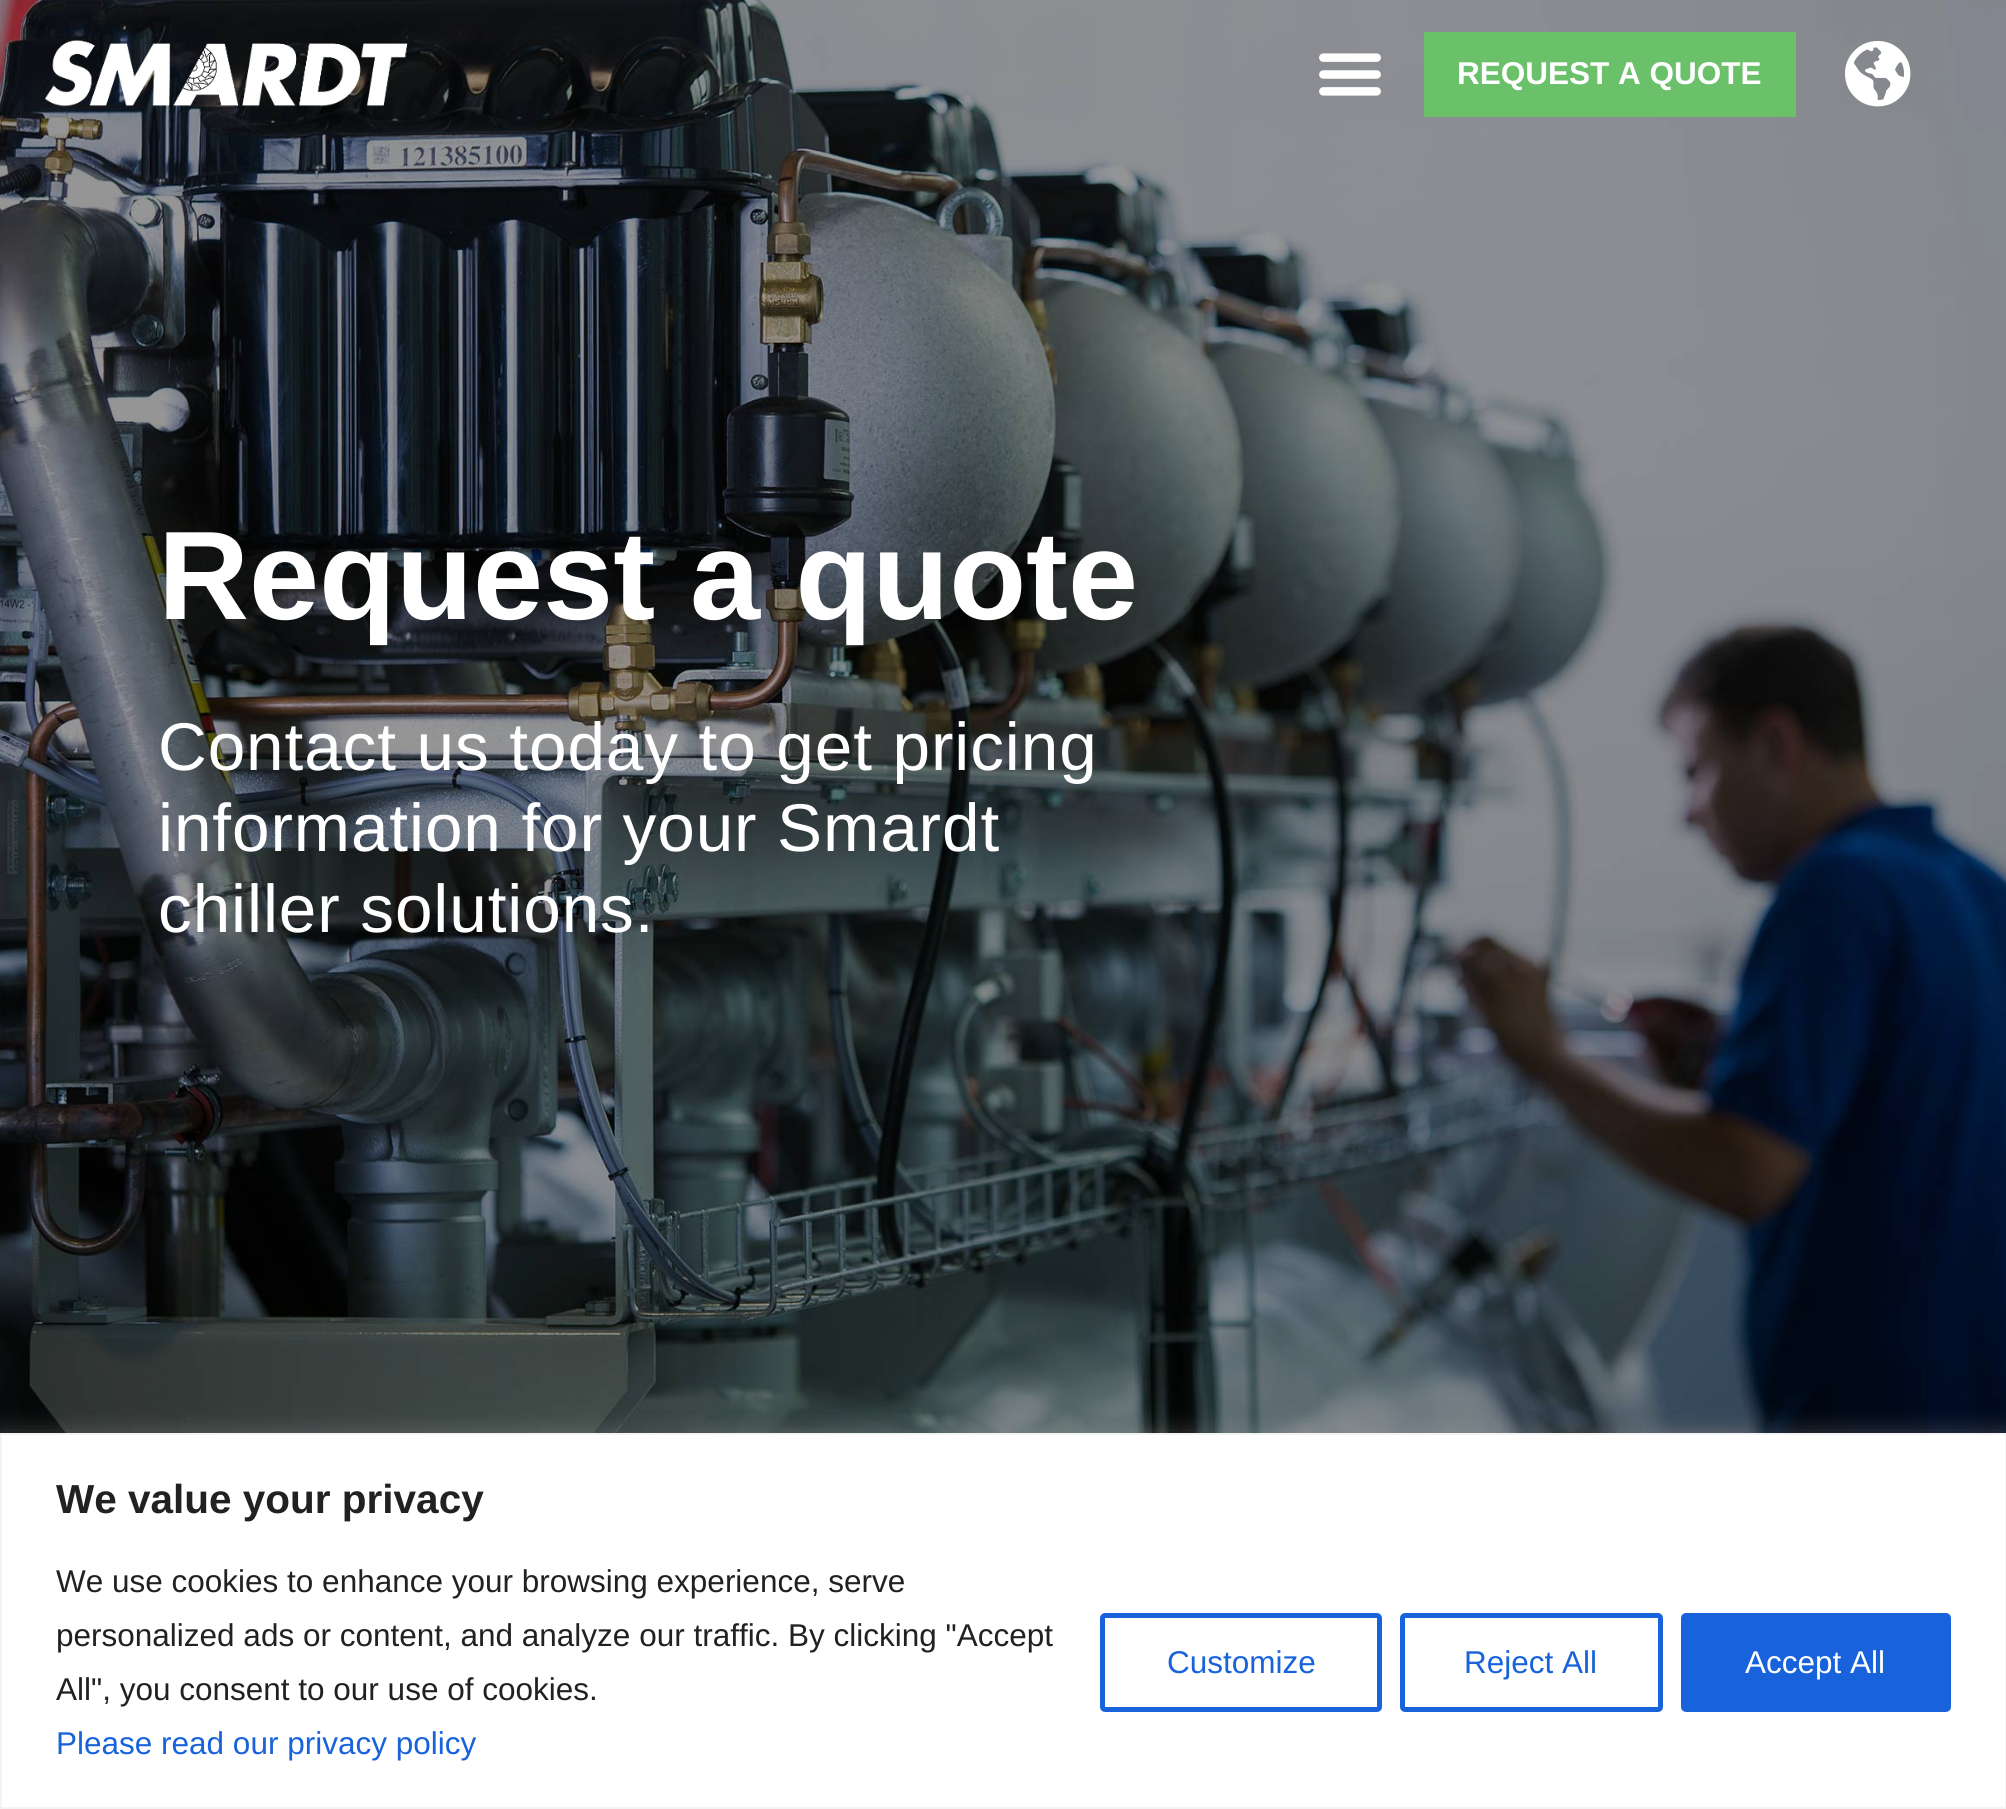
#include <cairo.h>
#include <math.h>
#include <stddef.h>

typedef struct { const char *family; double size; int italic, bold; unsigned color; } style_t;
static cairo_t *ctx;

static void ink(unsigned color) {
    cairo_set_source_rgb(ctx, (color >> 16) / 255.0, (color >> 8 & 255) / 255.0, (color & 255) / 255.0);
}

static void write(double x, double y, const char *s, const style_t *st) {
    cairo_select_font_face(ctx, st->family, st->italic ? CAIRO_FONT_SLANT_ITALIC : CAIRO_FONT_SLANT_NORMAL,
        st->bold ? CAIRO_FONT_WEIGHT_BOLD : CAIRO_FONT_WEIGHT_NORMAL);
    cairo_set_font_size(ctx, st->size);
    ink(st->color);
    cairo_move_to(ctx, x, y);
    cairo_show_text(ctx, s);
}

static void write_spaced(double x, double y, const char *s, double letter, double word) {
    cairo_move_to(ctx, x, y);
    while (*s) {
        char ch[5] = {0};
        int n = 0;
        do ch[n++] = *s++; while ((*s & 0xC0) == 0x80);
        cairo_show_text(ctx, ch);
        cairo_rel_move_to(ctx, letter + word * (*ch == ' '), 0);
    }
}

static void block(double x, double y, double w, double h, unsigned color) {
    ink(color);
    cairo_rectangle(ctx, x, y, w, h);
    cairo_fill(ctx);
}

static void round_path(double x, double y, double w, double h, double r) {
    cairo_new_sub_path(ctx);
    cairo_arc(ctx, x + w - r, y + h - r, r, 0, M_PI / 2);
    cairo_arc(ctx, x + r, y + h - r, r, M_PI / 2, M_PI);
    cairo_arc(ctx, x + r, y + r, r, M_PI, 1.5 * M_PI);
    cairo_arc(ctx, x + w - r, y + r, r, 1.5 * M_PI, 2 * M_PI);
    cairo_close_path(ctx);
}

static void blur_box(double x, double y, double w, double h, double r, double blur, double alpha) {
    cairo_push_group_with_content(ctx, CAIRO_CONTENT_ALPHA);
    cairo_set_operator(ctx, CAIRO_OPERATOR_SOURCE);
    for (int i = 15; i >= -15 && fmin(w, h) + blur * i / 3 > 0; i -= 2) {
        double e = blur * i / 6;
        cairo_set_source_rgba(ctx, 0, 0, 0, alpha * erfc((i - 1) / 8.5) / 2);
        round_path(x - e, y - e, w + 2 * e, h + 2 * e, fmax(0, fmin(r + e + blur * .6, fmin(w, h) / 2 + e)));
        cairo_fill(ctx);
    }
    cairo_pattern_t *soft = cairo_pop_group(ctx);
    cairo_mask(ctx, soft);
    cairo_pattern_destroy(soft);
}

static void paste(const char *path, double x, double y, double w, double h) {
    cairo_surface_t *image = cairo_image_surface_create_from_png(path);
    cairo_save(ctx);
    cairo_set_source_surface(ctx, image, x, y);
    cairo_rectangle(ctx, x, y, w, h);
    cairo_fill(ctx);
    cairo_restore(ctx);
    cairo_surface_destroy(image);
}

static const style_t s1 = {"Liberation Sans", 31.5, 0, 1, 0xffffff};
static const style_t s2 = {"Liberation Sans", 126, 0, 1, 0xffffff};
static const style_t s3 = {"Liberation Sans", 40.5, 0, 1, 0x212121};
static const style_t s4 = {"Liberation Sans", 31.5, 0, 0, 0x212121};
static const style_t s5 = {"Liberation Sans", 31.5, 0, 0, 0x1863dc};
static const style_t s6 = {"Liberation Sans", 31.5, 0, 0, 0xffffff};

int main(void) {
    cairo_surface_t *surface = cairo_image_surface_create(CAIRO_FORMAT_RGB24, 2006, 1809);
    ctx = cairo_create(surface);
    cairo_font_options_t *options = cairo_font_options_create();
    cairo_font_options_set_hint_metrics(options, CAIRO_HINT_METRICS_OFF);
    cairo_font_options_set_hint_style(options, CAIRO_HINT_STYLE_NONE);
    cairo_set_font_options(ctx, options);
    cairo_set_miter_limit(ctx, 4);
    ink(0xffffff);
    cairo_paint(ctx);
    paste("pic4.png", 0, 0, 2006, 1433);
    paste("pic1.png", 45, 40, 363, 67);
    paste("pic2.png", 1319, 53, 62, 43);
    block(1424, 32, 372, 85, 0x6bc06a);
    write(1457, 84, "REQUEST A QUOTE", &s1);
    paste("pic3.png", 1845, 41, 66, 66);
    write(158, 619, "Request a quote", &s2);
    cairo_select_font_face(ctx, "Liberation Sans", CAIRO_FONT_SLANT_NORMAL, CAIRO_FONT_WEIGHT_NORMAL);
    cairo_set_font_size(ctx, 67.5);
    write_spaced(158, 770, "Contact us today to get pricing", 0.9, 0);
    write_spaced(158, 851, "information for your Smardt", 0.9, 0);
    write_spaced(158, 932, "chiller solutions.", 0.9, 0);
    ink(0xacabab);
    blur_box(0, 1431, 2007, 376, 0, 11, 0.3);
    ink(0xffffff);
    cairo_rectangle(ctx, 1, 1434, 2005, 374);
    cairo_fill_preserve(ctx);
    ink(0xf4f4f4);
    cairo_stroke(ctx);
    write(56, 1513, "We value your privacy", &s3);
    write(56, 1592, "We use cookies to enhance your browsing experience, serve", &s4);
    write(56, 1646, "personalized ads or content, and analyze our traffic. By clicking \"Accept", &s4);
    write(56, 1700, "All\", you consent to our use of cookies.", &s4);
    write(56, 1754, "Please read our privacy policy", &s5);
    round_path(1102.5, 1615.5, 277, 94, 2.5);
    cairo_set_line_width(ctx, 5);
    cairo_stroke(ctx);
    write(1167, 1673, "Customize", &s5);
    round_path(1402.5, 1615.5, 258, 94, 2.5);
    cairo_stroke(ctx);
    write(1464, 1673, "Reject All", &s5);
    round_path(1683.5, 1615.5, 265, 94, 2.5);
    cairo_fill_preserve(ctx);
    cairo_stroke(ctx);
    write(1745, 1673, "Accept All", &s6);
    cairo_surface_write_to_png(surface, "screenshot.png");
    cairo_font_options_destroy(options);
    cairo_destroy(ctx);
    cairo_surface_destroy(surface);
    return 0;
}
